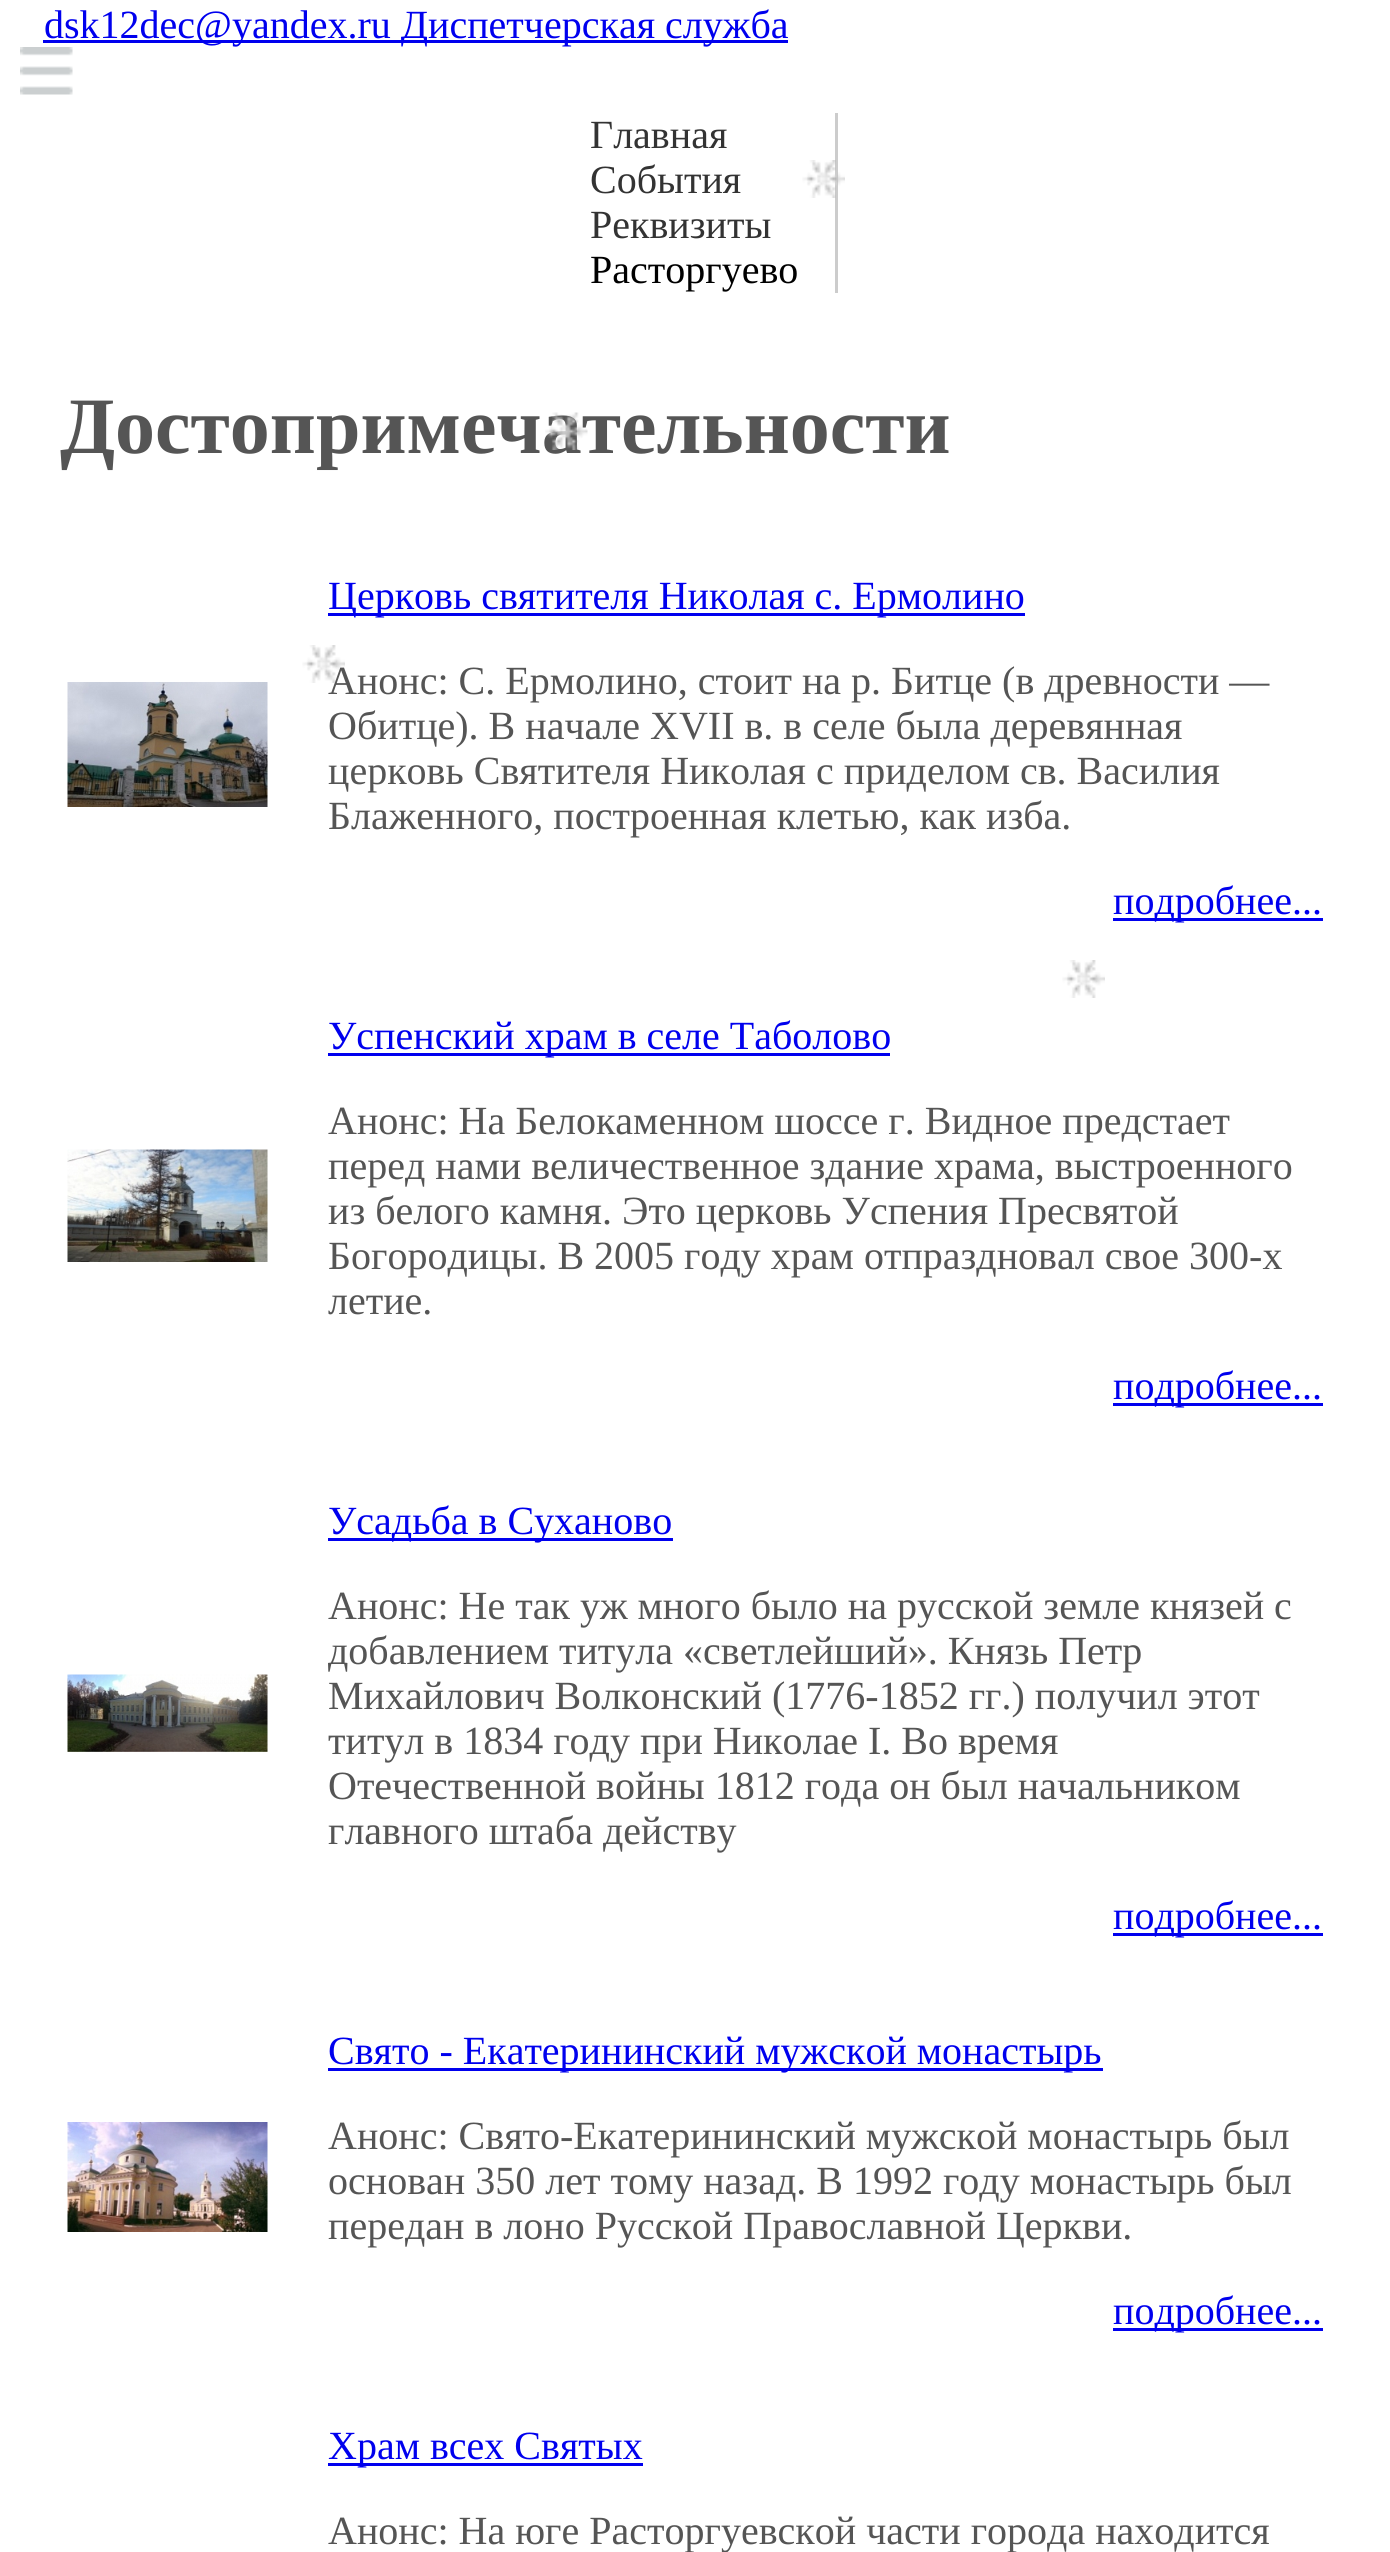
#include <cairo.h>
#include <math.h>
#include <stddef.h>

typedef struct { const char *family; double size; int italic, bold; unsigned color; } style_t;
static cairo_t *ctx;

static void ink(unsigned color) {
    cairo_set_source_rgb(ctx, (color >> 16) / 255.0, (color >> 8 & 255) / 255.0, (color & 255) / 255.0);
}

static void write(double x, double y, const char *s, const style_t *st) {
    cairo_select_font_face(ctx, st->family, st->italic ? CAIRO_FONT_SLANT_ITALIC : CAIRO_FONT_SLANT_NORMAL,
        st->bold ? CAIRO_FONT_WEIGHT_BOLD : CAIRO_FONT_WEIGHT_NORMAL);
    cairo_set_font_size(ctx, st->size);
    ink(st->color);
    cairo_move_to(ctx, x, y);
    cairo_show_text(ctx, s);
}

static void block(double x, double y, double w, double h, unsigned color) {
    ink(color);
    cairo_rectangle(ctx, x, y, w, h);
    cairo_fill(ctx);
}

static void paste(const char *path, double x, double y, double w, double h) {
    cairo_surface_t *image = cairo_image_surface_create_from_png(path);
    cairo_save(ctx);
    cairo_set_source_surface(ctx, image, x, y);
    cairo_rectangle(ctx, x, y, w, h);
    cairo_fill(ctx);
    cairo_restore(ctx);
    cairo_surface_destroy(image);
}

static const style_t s1 = {"Liberation Serif", 40, 0, 0, 0x0000ee};
static const style_t s2 = {"Liberation Serif", 40, 0, 0, 0x333333};
static const style_t s3 = {"Liberation Serif", 40, 0, 0, 0x000000};
static const style_t s4 = {"Liberation Serif", 80, 0, 1, 0x555555};
static const style_t s5 = {"Liberation Serif", 40, 0, 0, 0x555555};

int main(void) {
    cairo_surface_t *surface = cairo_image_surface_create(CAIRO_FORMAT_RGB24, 1390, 2552);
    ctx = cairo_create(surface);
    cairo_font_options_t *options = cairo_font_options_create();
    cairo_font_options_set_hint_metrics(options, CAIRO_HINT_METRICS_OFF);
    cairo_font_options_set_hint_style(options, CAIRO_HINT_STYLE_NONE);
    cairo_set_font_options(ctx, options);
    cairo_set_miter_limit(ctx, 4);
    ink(0xffffff);
    cairo_paint(ctx);
    block(43, 40, 745, 3, 0x0000ee);
    write(44, 38, "dsk12dec@yandex.ru Диспетчерская служба", &s1);
    paste("pic1.png", 20, 47, 53, 48);
    block(835, 113, 3, 180, 0xcccccc);
    write(590, 148, "Главная", &s2);
    write(590, 193, "События", &s2);
    write(590, 238, "Реквизиты", &s2);
    write(590, 283, "Расторгуево", &s3);
    paste("pic2.png", 802, 160, 43, 38);
    write(60, 453, "Достопримечательности", &s4);
    paste("pic3.png", 545, 412, 43, 38);
    write(328, 694, "Анонс: С. Ермолино, стоит на р. Битце (в древности —", &s5);
    paste("pic4.png", 302, 645, 43, 38);
    paste("pic5.png", 1062, 960, 43, 38);
    paste("pic6.png", 67, 682, 201, 125);
    block(328, 613, 697, 3, 0x0000ee);
    write(328, 609, "Церковь святителя Николая с. Ермолино", &s1);
    write(328, 739, "Обитце). В начале XVII в. в селе была деревянная", &s5);
    write(328, 784, "церковь Святителя Николая с приделом св. Василия", &s5);
    write(328, 829, "Блаженного, построенная клетью, как изба.", &s5);
    block(1113, 918, 210, 3, 0x0000ee);
    write(1113, 914, "подробнее...", &s1);
    paste("pic7.png", 67, 1149, 201, 113);
    block(328, 1053, 562, 3, 0x0000ee);
    write(328, 1049, "Успенский храм в селе Таболово", &s1);
    write(328, 1134, "Анонс: На Белокаменном шоссе г. Видное предстает", &s5);
    write(328, 1179, "перед нами величественное здание храма, выстроенного", &s5);
    write(328, 1224, "из белого камня. Это церковь Успения Пресвятой", &s5);
    write(328, 1269, "Богородицы. В 2005 году храм отпраздновал свое 300-х", &s5);
    write(328, 1314, "летие.", &s5);
    block(1113, 1403, 210, 3, 0x0000ee);
    write(1113, 1399, "подробнее...", &s1);
    paste("pic8.png", 67, 1674, 201, 78);
    block(328, 1538, 345, 3, 0x0000ee);
    write(328, 1534, "Усадьба в Суханово", &s1);
    write(328, 1619, "Анонс: Не так уж много было на русской земле князей с", &s5);
    write(328, 1664, "добавлением титула «светлейший». Князь Петр", &s5);
    write(328, 1709, "Михайлович Волконский (1776-1852 гг.) получил этот", &s5);
    write(328, 1754, "титул в 1834 году при Николае I. Во время", &s5);
    write(328, 1799, "Отечественной войны 1812 года он был начальником", &s5);
    write(328, 1844, "главного штаба действу", &s5);
    block(1113, 1933, 210, 3, 0x0000ee);
    write(1113, 1929, "подробнее...", &s1);
    paste("pic9.png", 67, 2122, 201, 110);
    block(328, 2068, 775, 3, 0x0000ee);
    write(328, 2064, "Свято - Екатерининский мужской монастырь", &s1);
    write(328, 2149, "Анонс: Свято-Екатерининский мужской монастырь был", &s5);
    write(328, 2194, "основан 350 лет тому назад. В 1992 году монастырь был", &s5);
    write(328, 2239, "передан в лоно Русской Православной Церкви.", &s5);
    block(1113, 2328, 210, 3, 0x0000ee);
    write(1113, 2324, "подробнее...", &s1);
    block(328, 2463, 315, 3, 0x0000ee);
    write(328, 2459, "Храм всех Святых", &s1);
    write(328, 2544, "Анонс: На юге Расторгуевской части города находится", &s5);
    cairo_surface_write_to_png(surface, "screenshot.png");
    cairo_font_options_destroy(options);
    cairo_destroy(ctx);
    cairo_surface_destroy(surface);
    return 0;
}
